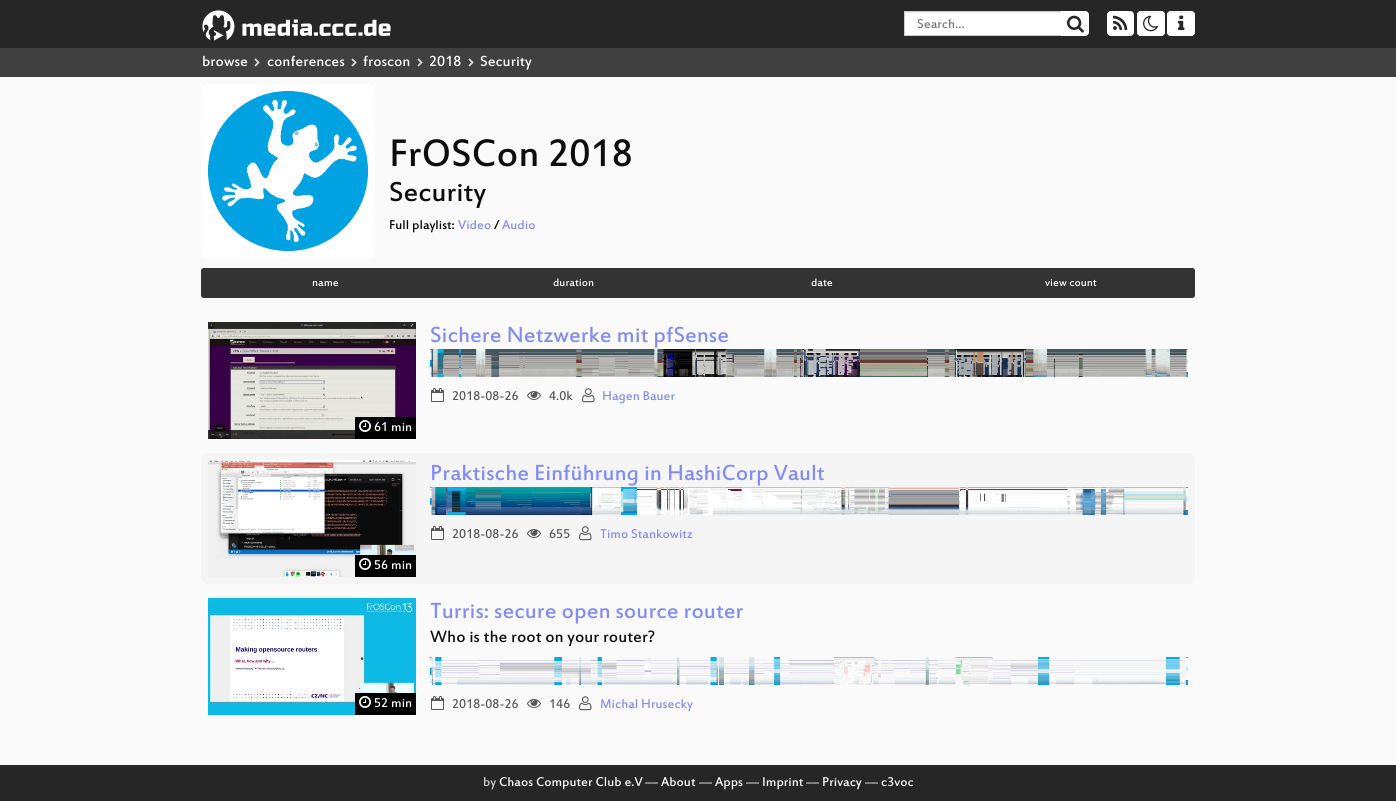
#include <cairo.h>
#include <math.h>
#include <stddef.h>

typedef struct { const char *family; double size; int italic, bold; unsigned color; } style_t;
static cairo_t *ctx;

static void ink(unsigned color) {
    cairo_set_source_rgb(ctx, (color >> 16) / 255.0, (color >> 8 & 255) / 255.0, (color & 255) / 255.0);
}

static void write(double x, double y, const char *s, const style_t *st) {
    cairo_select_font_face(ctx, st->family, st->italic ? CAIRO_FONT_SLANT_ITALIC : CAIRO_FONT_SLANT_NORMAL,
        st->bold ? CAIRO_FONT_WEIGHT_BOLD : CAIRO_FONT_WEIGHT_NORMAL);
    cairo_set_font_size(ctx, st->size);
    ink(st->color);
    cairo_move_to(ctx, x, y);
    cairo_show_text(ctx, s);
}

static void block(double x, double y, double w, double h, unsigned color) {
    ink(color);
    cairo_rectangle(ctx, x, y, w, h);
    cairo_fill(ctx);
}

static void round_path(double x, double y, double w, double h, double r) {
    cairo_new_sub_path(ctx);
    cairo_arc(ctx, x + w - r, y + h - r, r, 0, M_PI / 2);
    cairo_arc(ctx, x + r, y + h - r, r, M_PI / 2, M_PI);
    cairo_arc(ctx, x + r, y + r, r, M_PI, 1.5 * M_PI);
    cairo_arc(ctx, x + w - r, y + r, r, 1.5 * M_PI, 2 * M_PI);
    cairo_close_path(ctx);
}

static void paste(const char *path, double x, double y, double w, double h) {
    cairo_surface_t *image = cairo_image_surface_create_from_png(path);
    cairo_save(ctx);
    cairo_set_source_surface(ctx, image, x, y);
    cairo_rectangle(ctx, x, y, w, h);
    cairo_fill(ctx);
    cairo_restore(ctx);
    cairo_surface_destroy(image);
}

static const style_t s1 = {"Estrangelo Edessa", 14, 0, 0, 0x777777};
static const style_t s2 = {"Estrangelo Edessa", 16, 0, 0, 0xffffff};
static const style_t s3 = {"Estrangelo Edessa", 42, 0, 0, 0x0d0d0d};
static const style_t s4 = {"Estrangelo Edessa", 30, 0, 0, 0x0d0d0d};
static const style_t s5 = {"Estrangelo Edessa", 14, 0, 0, 0x000000};
static const style_t s6 = {"Estrangelo Edessa", 14, 0, 0, 0x818cf8};
static const style_t s7 = {"Estrangelo Edessa", 12, 0, 0, 0xffffff};
static const style_t s8 = {"Estrangelo Edessa", 24, 0, 0, 0x818cf8};
static const style_t s9 = {"Estrangelo Edessa", 14, 0, 0, 0x585858};
static const style_t s10 = {"Estrangelo Edessa", 14, 0, 0, 0xffffff};
static const style_t s11 = {"Estrangelo Edessa", 18, 0, 0, 0x0d0d0d};
static const style_t s12 = {"Estrangelo Edessa", 14, 0, 0, 0xd4d4d4};

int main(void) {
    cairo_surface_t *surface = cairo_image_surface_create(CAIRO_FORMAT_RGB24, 1396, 801);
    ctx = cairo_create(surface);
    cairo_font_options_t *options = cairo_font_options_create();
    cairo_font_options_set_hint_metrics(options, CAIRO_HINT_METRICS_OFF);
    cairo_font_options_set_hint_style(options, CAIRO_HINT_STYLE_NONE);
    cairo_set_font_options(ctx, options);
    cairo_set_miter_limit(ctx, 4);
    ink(0xfafafa);
    cairo_paint(ctx);
    block(0, 0, 1396, 48, 0x262626);
    paste("pic1.png", 202, 10, 189, 31);
    block(905, 13, 156, 22, 0xffffff);
    block(905, 12, 156, 1, 0xececec);
    cairo_rectangle(ctx, 904.5, 11.5, 157, 24);
    ink(0xcccccc);
    cairo_set_line_width(ctx, 1);
    cairo_stroke(ctx);
    write(917, 28, "Search…", &s1);
    ink(0xffffff);
    cairo_new_path(ctx);
    cairo_move_to(ctx, 1061.5, 11.5);
    cairo_line_to(ctx, 1085, 11.5);
    cairo_curve_to(ctx, 1087, 11.5, 1088.5, 13, 1088.5, 15);
    cairo_line_to(ctx, 1088.5, 32);
    cairo_curve_to(ctx, 1088.5, 34, 1087, 35.5, 1085, 35.5);
    cairo_line_to(ctx, 1061.5, 35.5);
    cairo_close_path(ctx);
    cairo_fill_preserve(ctx);
    cairo_stroke(ctx);
    paste("pic2.png", 1067, 15, 17, 18);
    round_path(1107.5, 11.5, 26, 24, 3.5);
    cairo_fill_preserve(ctx);
    cairo_stroke(ctx);
    paste("pic3.png", 1113, 15, 15, 15);
    round_path(1137, 11, 28, 25, 4);
    cairo_fill(ctx);
    ink(0xececec);
    cairo_set_fill_rule(ctx, CAIRO_FILL_RULE_EVEN_ODD);
    cairo_new_path(ctx);
    cairo_move_to(ctx, 1141, 13);
    cairo_line_to(ctx, 1158, 13);
    cairo_curve_to(ctx, 1162.5, 13, 1164, 13.5, 1164, 16);
    cairo_line_to(ctx, 1164, 15);
    cairo_curve_to(ctx, 1164, 13.5, 1162.5, 12, 1161, 12);
    cairo_line_to(ctx, 1141, 12);
    cairo_curve_to(ctx, 1139.5, 12, 1138, 13.5, 1138, 15);
    cairo_line_to(ctx, 1138, 19);
    cairo_curve_to(ctx, 1138, 17, 1138, 13, 1141, 13);
    cairo_close_path(ctx);
    cairo_move_to(ctx, 1138, 33);
    cairo_line_to(ctx, 1138, 30);
    cairo_close_path(ctx);
    cairo_fill(ctx);
    round_path(1137.5, 11.5, 27, 24, 3.5);
    ink(0xffffff);
    cairo_stroke(ctx);
    paste("pic4.png", 1143, 15, 15, 17);
    round_path(1167, 11, 28, 25, 4);
    cairo_fill(ctx);
    ink(0xececec);
    cairo_new_path(ctx);
    cairo_move_to(ctx, 1171, 13);
    cairo_line_to(ctx, 1188, 13);
    cairo_curve_to(ctx, 1192.5, 13, 1194, 13.5, 1194, 16);
    cairo_line_to(ctx, 1194, 15);
    cairo_curve_to(ctx, 1194, 13.5, 1192.5, 12, 1191, 12);
    cairo_line_to(ctx, 1171, 12);
    cairo_curve_to(ctx, 1169.5, 12, 1168, 13.5, 1168, 15);
    cairo_line_to(ctx, 1168, 19);
    cairo_curve_to(ctx, 1168, 17, 1168, 13, 1171, 13);
    cairo_close_path(ctx);
    cairo_move_to(ctx, 1168, 33);
    cairo_line_to(ctx, 1168, 30);
    cairo_close_path(ctx);
    cairo_fill(ctx);
    round_path(1167.5, 11.5, 27, 24, 3.5);
    ink(0xffffff);
    cairo_stroke(ctx);
    paste("pic5.png", 1178, 15, 7, 15);
    block(0, 48, 1396, 29, 0x404040);
    write(202, 66, "browse", &s2);
    paste("pic6.png", 254, 58, 6, 9);
    write(267, 66, "conferences", &s2);
    paste("pic6.png", 351, 58, 6, 9);
    write(363, 66, "froscon", &s2);
    paste("pic6.png", 417, 58, 6, 9);
    write(429, 66, "2018", &s2);
    paste("pic6.png", 468, 58, 6, 9);
    write(480, 66, "Security", &s2);
    round_path(201, 84, 174, 174, 7);
    cairo_fill(ctx);
    paste("pic7.png", 208, 91, 160, 160);
    write(389, 166, "FrOSCon 2018", &s3);
    write(389, 201, "Security", &s4);
    write(389, 229, "Full playlist:", &s5);
    write(458, 229, "Video", &s6);
    write(494, 229, "/", &s5);
    write(502, 229, "Audio", &s6);
    ink(0x333333);
    cairo_new_path(ctx);
    cairo_move_to(ctx, 204, 268.5);
    cairo_line_to(ctx, 448.5, 268.5);
    cairo_line_to(ctx, 448.5, 297.5);
    cairo_line_to(ctx, 204, 297.5);
    cairo_curve_to(ctx, 202.5, 297.5, 201.5, 296.5, 201.5, 295);
    cairo_line_to(ctx, 201.5, 271);
    cairo_curve_to(ctx, 201.5, 269.5, 202.5, 268.5, 204, 268.5);
    cairo_close_path(ctx);
    cairo_fill_preserve(ctx);
    cairo_stroke(ctx);
    write(312, 286, "name", &s7);
    block(449, 268, 497, 30, 0x333333);
    write(553, 286, "duration", &s7);
    write(811, 286, "date", &s7);
    ink(0x333333);
    cairo_new_path(ctx);
    cairo_move_to(ctx, 946.5, 268.5);
    cairo_line_to(ctx, 1192, 268.5);
    cairo_curve_to(ctx, 1193.5, 268.5, 1194.5, 269.5, 1194.5, 271);
    cairo_line_to(ctx, 1194.5, 295);
    cairo_curve_to(ctx, 1194.5, 296.5, 1193.5, 297.5, 1192, 297.5);
    cairo_line_to(ctx, 946.5, 297.5);
    cairo_close_path(ctx);
    cairo_fill_preserve(ctx);
    cairo_stroke(ctx);
    write(1045, 286, "view count", &s7);
    write(430, 342, "Sichere Netzwerke mit pfSense", &s8);
    paste("pic8.png", 430, 349, 758, 28);
    paste("pic9.png", 431, 388, 13, 14);
    write(452, 400, "2018-08-26", &s9);
    paste("pic10.png", 527, 391, 14, 9);
    write(549, 400, "4.0k", &s9);
    paste("pic11.png", 582, 388, 13, 15);
    write(602, 400, "Hagen Bauer", &s6);
    paste("pic12.png", 208, 322, 208, 117);
    block(355, 417, 61, 22, 0x000000);
    paste("pic13.png", 359, 420, 12, 12);
    write(374, 431, "61 min", &s10);
    ink(0xf5f5f5);
    round_path(201, 453, 994, 131, 7);
    cairo_fill(ctx);
    write(430, 480, "Praktische Einführung in HashiCorp Vault", &s8);
    paste("pic14.png", 430, 487, 758, 28);
    paste("pic15.png", 431, 526, 13, 14);
    write(452, 538, "2018-08-26", &s9);
    paste("pic16.png", 527, 529, 14, 9);
    write(549, 538, "655", &s9);
    paste("pic17.png", 579, 526, 13, 15);
    write(600, 538, "Timo Stankowitz", &s6);
    paste("pic18.png", 208, 460, 208, 117);
    block(355, 555, 61, 22, 0x000000);
    paste("pic13.png", 359, 558, 12, 12);
    write(374, 569, "56 min", &s10);
    paste("pic19.png", 208, 598, 208, 117);
    block(355, 693, 61, 22, 0x000000);
    paste("pic13.png", 359, 696, 12, 12);
    write(374, 707, "52 min", &s10);
    write(430, 618, "Turris: secure open source router", &s8);
    write(430, 642, "Who is the root on your router?", &s11);
    paste("pic20.png", 430, 657, 758, 28);
    paste("pic9.png", 431, 696, 13, 14);
    write(452, 708, "2018-08-26", &s9);
    paste("pic10.png", 527, 699, 14, 9);
    write(549, 708, "146", &s9);
    paste("pic11.png", 579, 696, 13, 15);
    write(600, 708, "Michal Hrusecky", &s6);
    block(0, 765, 1396, 36, 0x262626);
    write(483, 786, "by", &s12);
    write(499, 786, "Chaos Computer Club e.V", &s10);
    write(645, 786, "––", &s12);
    write(661, 786, "About", &s10);
    write(699, 786, "––", &s12);
    write(715, 786, "Apps", &s10);
    write(746, 786, "––", &s12);
    write(762, 786, "Imprint", &s10);
    write(806, 786, "––", &s12);
    write(822, 786, "Privacy", &s10);
    write(865, 786, "––", &s12);
    write(881, 786, "c3voc", &s10);
    cairo_surface_write_to_png(surface, "screenshot.png");
    cairo_font_options_destroy(options);
    cairo_destroy(ctx);
    cairo_surface_destroy(surface);
    return 0;
}
